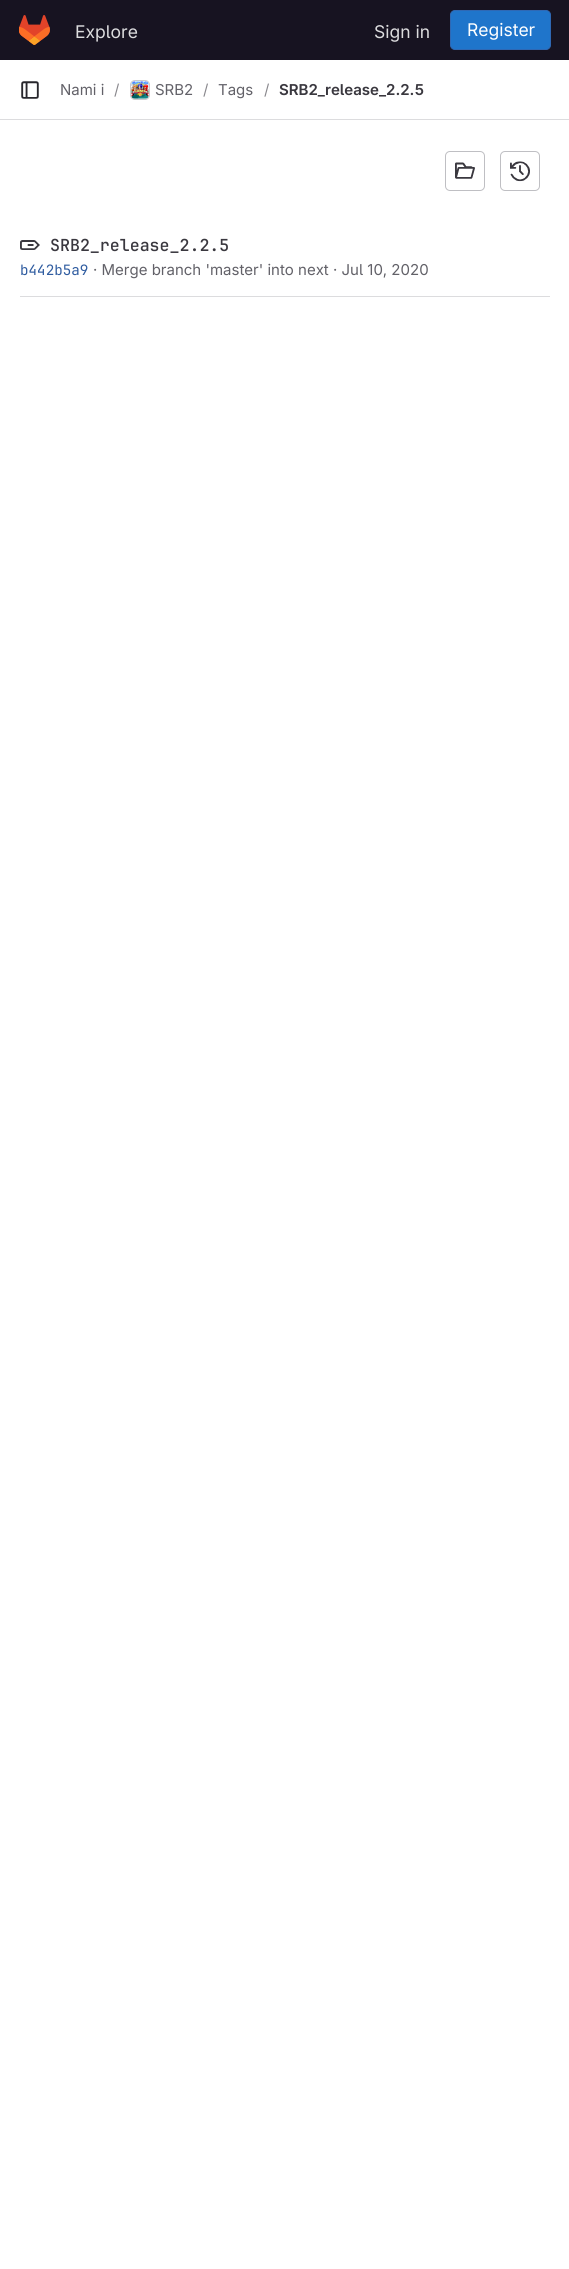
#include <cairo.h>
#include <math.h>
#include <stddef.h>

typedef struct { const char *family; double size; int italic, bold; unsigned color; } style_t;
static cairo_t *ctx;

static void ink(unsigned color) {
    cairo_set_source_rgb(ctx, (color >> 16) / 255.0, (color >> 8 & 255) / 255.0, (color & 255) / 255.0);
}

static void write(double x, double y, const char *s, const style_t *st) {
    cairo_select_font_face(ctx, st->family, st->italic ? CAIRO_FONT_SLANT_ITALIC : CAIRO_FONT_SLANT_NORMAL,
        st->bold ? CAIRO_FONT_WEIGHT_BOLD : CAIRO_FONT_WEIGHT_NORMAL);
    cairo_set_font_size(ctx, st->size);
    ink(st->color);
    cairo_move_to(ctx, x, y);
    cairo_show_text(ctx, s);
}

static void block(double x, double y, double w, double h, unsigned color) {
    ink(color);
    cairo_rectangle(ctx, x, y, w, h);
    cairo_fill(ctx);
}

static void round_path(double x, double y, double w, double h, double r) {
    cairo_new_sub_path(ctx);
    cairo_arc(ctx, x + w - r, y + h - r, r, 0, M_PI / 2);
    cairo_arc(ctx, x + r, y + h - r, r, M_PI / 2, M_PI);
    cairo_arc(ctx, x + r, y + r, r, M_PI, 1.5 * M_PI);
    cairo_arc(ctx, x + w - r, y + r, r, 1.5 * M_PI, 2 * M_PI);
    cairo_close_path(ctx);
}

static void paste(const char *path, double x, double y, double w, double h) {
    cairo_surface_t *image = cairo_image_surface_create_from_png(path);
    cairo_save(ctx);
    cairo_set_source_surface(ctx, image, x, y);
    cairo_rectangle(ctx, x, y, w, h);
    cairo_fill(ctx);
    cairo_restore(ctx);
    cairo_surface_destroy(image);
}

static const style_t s1 = {"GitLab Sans", 17.5, 0, 0, 0xdcdcde};
static const style_t s2 = {"GitLab Sans", 17.5, 0, 0, 0xffffff};
static const style_t s3 = {"GitLab Sans", 15, 0, 0, 0x626168};
static const style_t s4 = {"GitLab Sans", 15, 0, 0, 0x89888d};
static const style_t s5 = {"GitLab Sans SemiBold", 15, 0, 0, 0x3a383f};
static const style_t s6 = {"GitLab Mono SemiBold", 16.6, 0, 0, 0x3a383f};
static const style_t s7 = {"GitLab Mono", 14.25, 0, 0, 0x2f5ca0};

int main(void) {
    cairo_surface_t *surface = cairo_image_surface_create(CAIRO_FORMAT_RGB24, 569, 2269);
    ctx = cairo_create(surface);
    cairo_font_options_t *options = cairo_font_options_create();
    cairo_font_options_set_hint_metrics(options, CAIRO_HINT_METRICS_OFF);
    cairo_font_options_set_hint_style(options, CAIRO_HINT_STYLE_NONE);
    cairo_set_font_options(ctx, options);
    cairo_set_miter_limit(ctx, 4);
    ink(0xffffff);
    cairo_paint(ctx);
    block(0, 0, 569, 60, 0x171321);
    paste("pic1.png", 19, 15, 31, 30);
    write(75, 38, "Explore", &s1);
    write(374, 38, "Sign in", &s1);
    ink(0x1f75cb);
    round_path(450.5, 10.5, 100, 39, 4.5);
    cairo_fill_preserve(ctx);
    ink(0x2f68b4);
    cairo_set_line_width(ctx, 1);
    cairo_stroke(ctx);
    write(467, 36, "Register", &s2);
    block(0, 119, 569, 1, 0xdcdcde);
    paste("pic2.png", 21, 81, 18, 18);
    write(60, 95, "Nami i", &s3);
    write(114, 95, "/", &s4);
    round_path(130.5, 80.5, 19, 19, 4.5);
    ink(0xdcdcde);
    cairo_stroke(ctx);
    paste("pic3.png", 131, 81, 18, 18);
    round_path(130.5, 80.5, 19, 19, 4.5);
    cairo_set_source_rgba(ctx, 0.02, 0.02, 0.024, 0.08);
    cairo_stroke(ctx);
    write(155, 95, "SRB2", &s3);
    write(203, 95, "/", &s4);
    write(218, 95, "Tags", &s3);
    write(264, 95, "/", &s4);
    write(279, 95, "SRB2_release_2.2.5", &s5);
    block(20, 296, 530, 1, 0xdcdcde);
    round_path(445.5, 151.5, 39, 39, 4.5);
    ink(0xbfbfc3);
    cairo_stroke(ctx);
    paste("pic4.png", 455, 162, 20, 17);
    round_path(500.5, 151.5, 39, 39, 4.5);
    cairo_stroke(ctx);
    paste("pic5.png", 510, 161, 20, 21);
    paste("pic6.png", 20, 240, 20, 10);
    write(50, 251, "SRB2_release_2.2.5", &s6);
    write(20, 275, "b442b5a9", &s7);
    write(93, 275, "· Merge branch 'master' into next · Jul 10, 2020", &s3);
    cairo_surface_write_to_png(surface, "screenshot.png");
    cairo_font_options_destroy(options);
    cairo_destroy(ctx);
    cairo_surface_destroy(surface);
    return 0;
}
